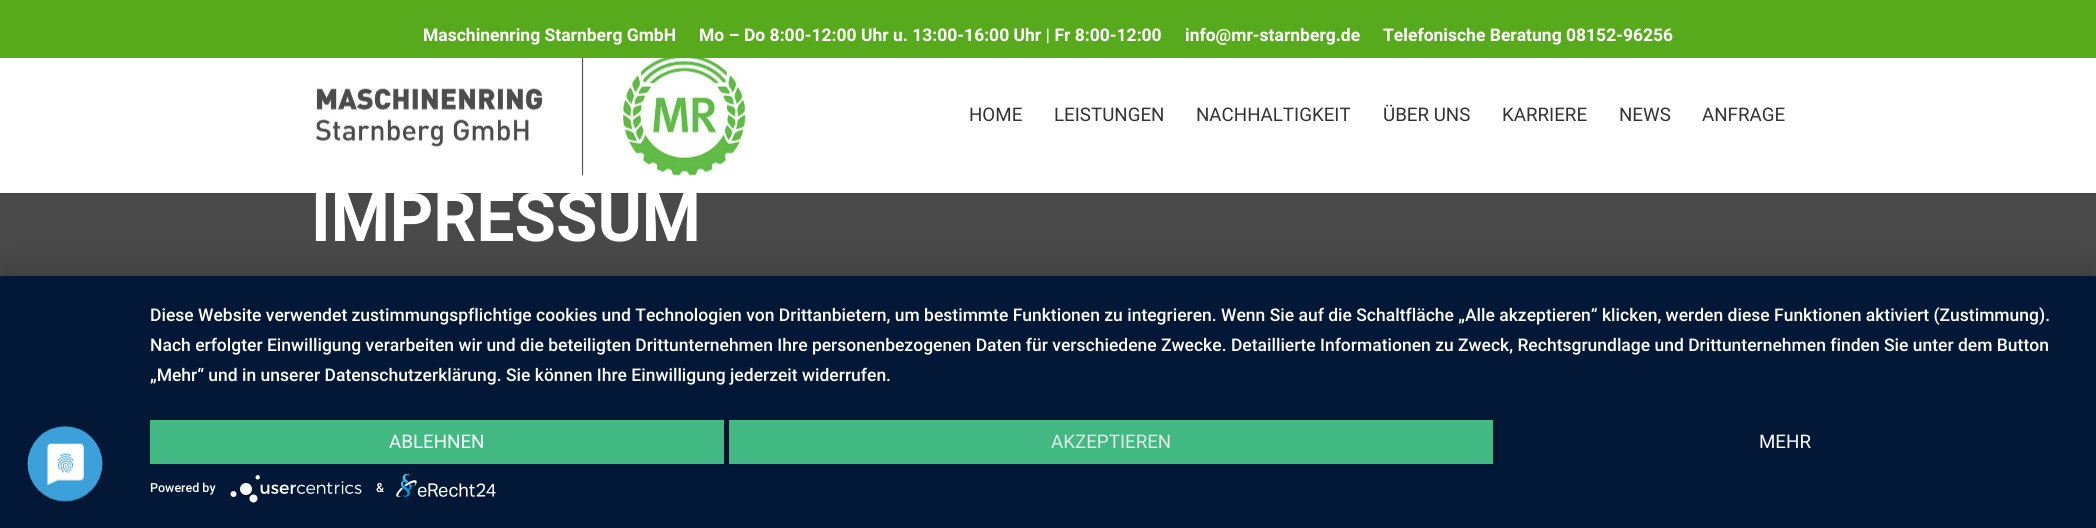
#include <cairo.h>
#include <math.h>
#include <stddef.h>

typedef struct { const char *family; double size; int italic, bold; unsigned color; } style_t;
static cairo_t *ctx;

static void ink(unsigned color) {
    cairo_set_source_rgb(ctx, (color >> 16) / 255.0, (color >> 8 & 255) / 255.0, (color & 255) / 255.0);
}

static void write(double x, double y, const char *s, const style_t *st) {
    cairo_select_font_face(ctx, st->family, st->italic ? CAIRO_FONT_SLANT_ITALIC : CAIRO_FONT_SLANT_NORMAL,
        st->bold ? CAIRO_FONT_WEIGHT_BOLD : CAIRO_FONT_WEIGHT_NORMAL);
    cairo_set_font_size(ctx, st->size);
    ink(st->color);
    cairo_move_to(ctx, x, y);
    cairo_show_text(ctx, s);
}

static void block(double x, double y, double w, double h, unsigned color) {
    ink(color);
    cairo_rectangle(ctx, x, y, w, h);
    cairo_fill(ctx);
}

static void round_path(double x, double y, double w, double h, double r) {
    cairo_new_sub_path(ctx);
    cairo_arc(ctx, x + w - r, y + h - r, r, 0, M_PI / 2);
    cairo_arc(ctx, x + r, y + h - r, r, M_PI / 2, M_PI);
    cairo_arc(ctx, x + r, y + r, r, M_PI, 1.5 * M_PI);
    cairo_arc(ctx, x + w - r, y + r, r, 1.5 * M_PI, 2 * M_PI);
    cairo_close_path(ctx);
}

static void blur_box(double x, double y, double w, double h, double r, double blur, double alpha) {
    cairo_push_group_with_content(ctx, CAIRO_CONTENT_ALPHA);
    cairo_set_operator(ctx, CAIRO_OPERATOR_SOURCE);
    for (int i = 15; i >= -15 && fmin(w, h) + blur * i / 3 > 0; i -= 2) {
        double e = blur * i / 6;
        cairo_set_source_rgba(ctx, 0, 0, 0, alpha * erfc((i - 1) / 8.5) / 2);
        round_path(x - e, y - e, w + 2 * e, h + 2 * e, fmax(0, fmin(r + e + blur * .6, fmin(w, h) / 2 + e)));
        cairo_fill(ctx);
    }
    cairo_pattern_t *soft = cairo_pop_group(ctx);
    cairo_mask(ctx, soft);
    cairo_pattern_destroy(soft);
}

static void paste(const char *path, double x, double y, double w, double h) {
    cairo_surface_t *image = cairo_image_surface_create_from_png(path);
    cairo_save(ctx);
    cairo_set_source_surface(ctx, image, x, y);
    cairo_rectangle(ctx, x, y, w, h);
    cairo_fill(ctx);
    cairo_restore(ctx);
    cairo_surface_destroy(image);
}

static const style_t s1 = {"Roboto", 17.5, 0, 1, 0xffffff};
static const style_t s2 = {"Roboto", 18.75, 0, 0, 0x333333};
static const style_t s3 = {"Roboto", 67.5, 0, 1, 0xffffff};
static const style_t s4 = {"Roboto Medium", 17.5, 0, 0, 0xffffff};
static const style_t s5 = {"Roboto", 18.75, 0, 0, 0xffffff};
static const style_t s6 = {"Roboto", 18.75, 0, 0, 0xe6e6e6};
static const style_t s7 = {"Roboto Medium", 12.5, 0, 0, 0xffffff};

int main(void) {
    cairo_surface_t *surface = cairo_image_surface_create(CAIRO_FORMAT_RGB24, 2096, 528);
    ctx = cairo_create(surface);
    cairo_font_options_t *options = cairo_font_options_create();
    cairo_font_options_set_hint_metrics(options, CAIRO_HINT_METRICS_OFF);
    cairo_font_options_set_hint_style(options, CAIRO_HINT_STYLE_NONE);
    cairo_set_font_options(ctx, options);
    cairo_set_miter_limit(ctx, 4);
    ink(0x494949);
    cairo_paint(ctx);
    block(0, 0, 2096, 58, 0x57aa1c);
    write(423, 41, "Maschinenring Starnberg GmbH", &s1);
    write(699, 41, "Mo – Do 8:00-12:00 Uhr u. 13:00-16:00 Uhr | Fr 8:00-12:00", &s1);
    write(1185, 41, "info@mr-starnberg.de", &s1);
    write(1383, 41, "Telefonische Beratung 08152-96256", &s1);
    cairo_set_source_rgba(ctx, 0, 0, 0, 0.1);
    cairo_rectangle(ctx, 0, 193, 2096, 1);
    cairo_fill(ctx);
    block(0, 58, 2096, 135, 0xffffff);
    paste("pic1.png", 315, 58, 430, 118);
    write(969, 121, "HOME", &s2);
    write(1054, 121, "LEISTUNGEN", &s2);
    write(1196, 121, "NACHHALTIGKEIT", &s2);
    write(1383, 121, "ÜBER UNS", &s2);
    write(1502, 121, "KARRIERE", &s2);
    write(1619, 121, "NEWS", &s2);
    write(1702, 121, "ANFRAGE", &s2);
    write(311, 241, "IMPRESSUM", &s3);
    ink(0x000000);
    blur_box(0, 284, 2096, 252, 0, 22.5, 0.3);
    block(0, 276, 2096, 252, 0x021836);
    paste("pic2.png", 26, 425, 78, 78);
    write(150, 321, "Diese Website verwendet zustimmungspflichtige cookies und Technologien von Drittanbietern, um bestimmte Funktionen zu integrieren. Wenn Sie auf die Schaltfläche „Alle akzeptieren“ klicken, werden diese Funktionen aktiviert (Zustimmung).", &s4);
    write(150, 351, "Nach erfolgter Einwilligung verarbeiten wir und die beteiligten Drittunternehmen Ihre personenbezogenen Daten für verschiedene Zwecke. Detaillierte Informationen zu Zweck, Rechtsgrundlage und Drittunternehmen finden Sie unter dem Button", &s4);
    write(150, 381, "„Mehr“ und in unserer Datenschutzerklärung. Sie können Ihre Einwilligung jederzeit widerrufen.", &s4);
    cairo_save(ctx);
    cairo_rectangle(ctx, 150, 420, 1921, 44);
    cairo_clip(ctx);
    ink(0x000000);
    blur_box(150, 421, 574, 44, 0, 2.5, 0.4);
    cairo_restore(ctx);
    block(150, 420, 574, 44, 0x42b983);
    write(389, 448, "ABLEHNEN", &s5);
    cairo_save(ctx);
    cairo_rectangle(ctx, 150, 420, 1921, 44);
    cairo_clip(ctx);
    ink(0x000000);
    blur_box(729, 421, 764, 44, 0, 2.5, 0.4);
    cairo_restore(ctx);
    block(729, 420, 764, 44, 0x42b983);
    write(1051, 448, "AKZEPTIEREN", &s6);
    cairo_save(ctx);
    cairo_rectangle(ctx, 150, 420, 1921, 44);
    cairo_clip(ctx);
    ink(0x000000);
    blur_box(1498, 421, 573, 44, 0, 2.5, 0.4);
    cairo_restore(ctx);
    block(1498, 420, 573, 44, 0x021836);
    write(1759, 448, "MEHR", &s5);
    write(150, 492, "Powered by", &s7);
    paste("pic3.png", 230, 475, 132, 28);
    write(376, 492, "&", &s7);
    paste("pic4.png", 396, 474, 100, 23);
    cairo_surface_write_to_png(surface, "screenshot.png");
    cairo_font_options_destroy(options);
    cairo_destroy(ctx);
    cairo_surface_destroy(surface);
    return 0;
}
